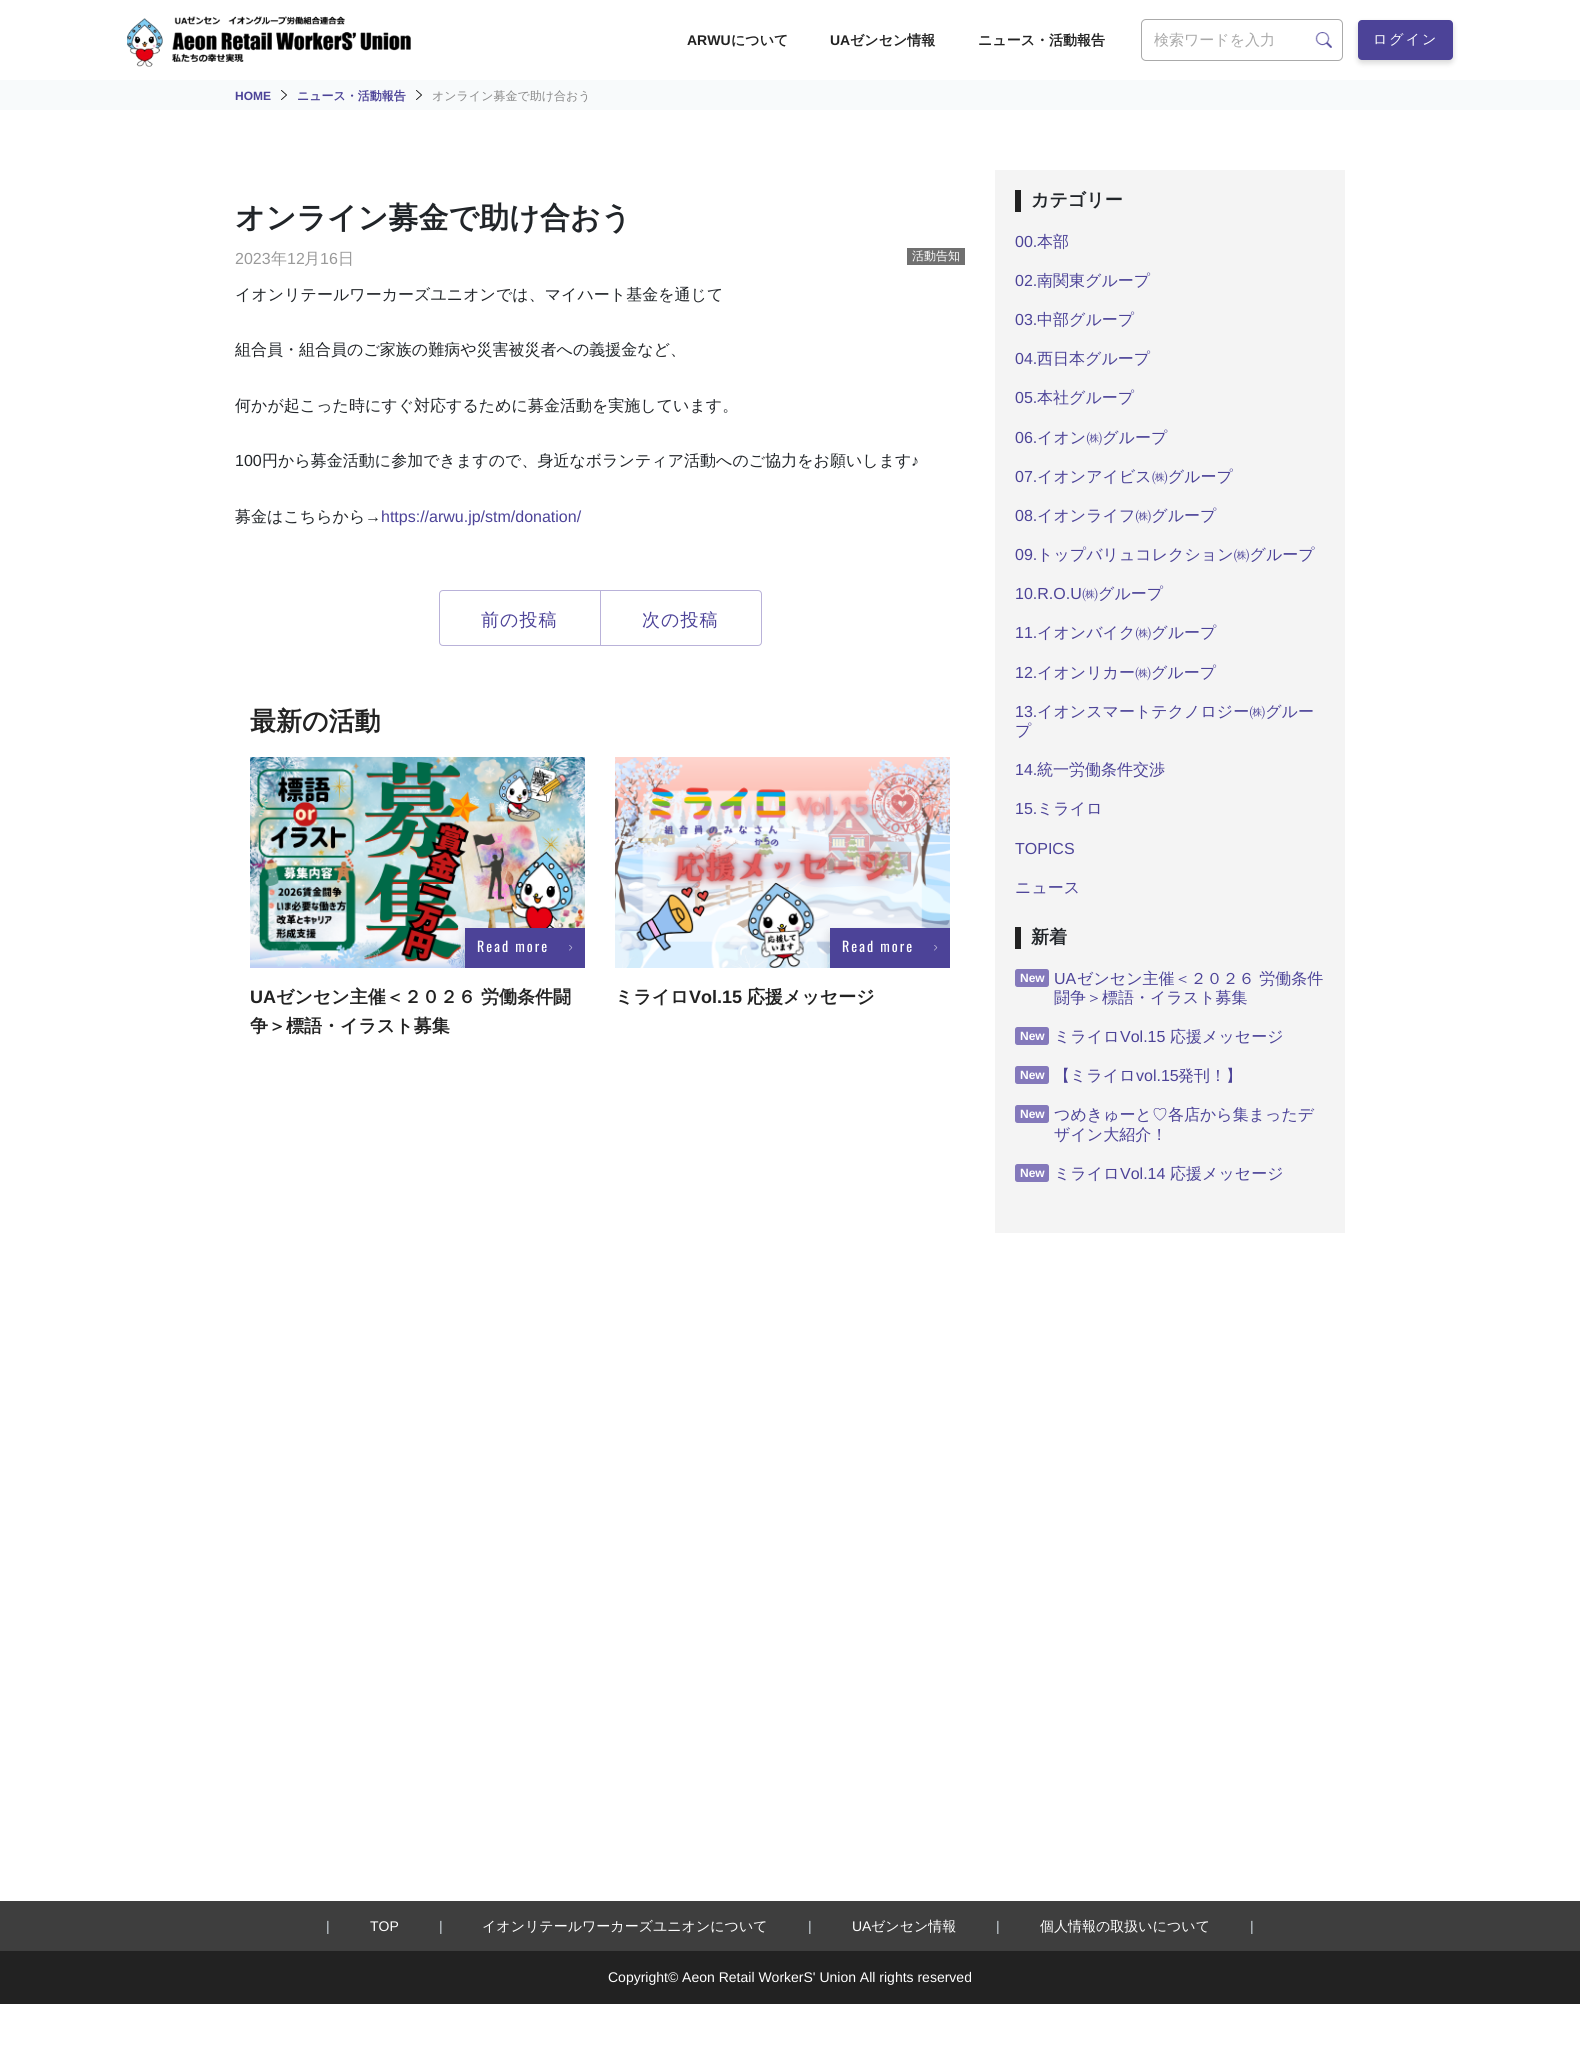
#include <cairo.h>
#include <math.h>
#include <stddef.h>

typedef struct { const char *family; double size; int italic, bold; unsigned color; } style_t;
static cairo_t *ctx;

static void ink(unsigned color) {
    cairo_set_source_rgb(ctx, (color >> 16) / 255.0, (color >> 8 & 255) / 255.0, (color & 255) / 255.0);
}

static void write(double x, double y, const char *s, const style_t *st) {
    cairo_select_font_face(ctx, st->family, st->italic ? CAIRO_FONT_SLANT_ITALIC : CAIRO_FONT_SLANT_NORMAL,
        st->bold ? CAIRO_FONT_WEIGHT_BOLD : CAIRO_FONT_WEIGHT_NORMAL);
    cairo_set_font_size(ctx, st->size);
    ink(st->color);
    cairo_move_to(ctx, x, y);
    cairo_show_text(ctx, s);
}

static void write_spaced(double x, double y, const char *s, double letter, double word) {
    cairo_move_to(ctx, x, y);
    while (*s) {
        char ch[5] = {0};
        int n = 0;
        do ch[n++] = *s++; while ((*s & 0xC0) == 0x80);
        cairo_show_text(ctx, ch);
        cairo_rel_move_to(ctx, letter + word * (*ch == ' '), 0);
    }
}

static void block(double x, double y, double w, double h, unsigned color) {
    ink(color);
    cairo_rectangle(ctx, x, y, w, h);
    cairo_fill(ctx);
}

static void round_path(double x, double y, double w, double h, double r) {
    cairo_new_sub_path(ctx);
    cairo_arc(ctx, x + w - r, y + h - r, r, 0, M_PI / 2);
    cairo_arc(ctx, x + r, y + h - r, r, M_PI / 2, M_PI);
    cairo_arc(ctx, x + r, y + r, r, M_PI, 1.5 * M_PI);
    cairo_arc(ctx, x + w - r, y + r, r, 1.5 * M_PI, 2 * M_PI);
    cairo_close_path(ctx);
}

static void blur_box(double x, double y, double w, double h, double r, double blur, double alpha) {
    cairo_push_group_with_content(ctx, CAIRO_CONTENT_ALPHA);
    cairo_set_operator(ctx, CAIRO_OPERATOR_SOURCE);
    for (int i = 15; i >= -15 && fmin(w, h) + blur * i / 3 > 0; i -= 2) {
        double e = blur * i / 6;
        cairo_set_source_rgba(ctx, 0, 0, 0, alpha * erfc((i - 1) / 8.5) / 2);
        round_path(x - e, y - e, w + 2 * e, h + 2 * e, fmax(0, fmin(r + e + blur * .6, fmin(w, h) / 2 + e)));
        cairo_fill(ctx);
    }
    cairo_pattern_t *soft = cairo_pop_group(ctx);
    cairo_mask(ctx, soft);
    cairo_pattern_destroy(soft);
}

static void paste(const char *path, double x, double y, double w, double h) {
    cairo_surface_t *image = cairo_image_surface_create_from_png(path);
    cairo_save(ctx);
    cairo_set_source_surface(ctx, image, x, y);
    cairo_rectangle(ctx, x, y, w, h);
    cairo_fill(ctx);
    cairo_restore(ctx);
    cairo_surface_destroy(image);
}

static const style_t s1 = {"Liberation Sans", 14, 0, 1, 0x222222};
static const style_t s2 = {"WenQuanYi Zen Hei", 14, 0, 1, 0x222222};
static const style_t s3 = {"WenQuanYi Zen Hei Medium", 15, 0, 0, 0xa9a9a9};
static const style_t s4 = {"Liberation Sans", 12, 0, 1, 0x4c4398};
static const style_t s5 = {"WenQuanYi Zen Hei", 12, 0, 1, 0x4c4398};
static const style_t s6 = {"WenQuanYi Zen Hei Medium", 12, 0, 0, 0x888888};
static const style_t s7 = {"WenQuanYi Zen Hei", 30, 0, 1, 0x212529};
static const style_t s8 = {"Liberation Sans", 16, 0, 0, 0x999999};
static const style_t s9 = {"WenQuanYi Zen Hei Medium", 16, 0, 0, 0x999999};
static const style_t s10 = {"WenQuanYi Zen Hei Medium", 12, 0, 0, 0xffffff};
static const style_t s11 = {"WenQuanYi Zen Hei Medium", 16, 0, 0, 0x212529};
static const style_t s12 = {"Liberation Sans", 16, 0, 0, 0x212529};
static const style_t s13 = {"Liberation Sans", 16, 0, 0, 0x4c4398};
static const style_t s14 = {"WenQuanYi Zen Hei", 26, 0, 1, 0x222222};
static const style_t s15 = {"Liberation Sans", 18, 0, 1, 0x222222};
static const style_t s16 = {"WenQuanYi Zen Hei", 18, 0, 1, 0x222222};
static const style_t s17 = {"WenQuanYi Zen Hei", 18, 0, 1, 0x212529};
static const style_t s18 = {"WenQuanYi Zen Hei Medium", 16, 0, 0, 0x4c4398};
static const style_t s19 = {"Liberation Sans", 12, 0, 1, 0xffffff};
static const style_t s20 = {"Liberation Sans", 14, 0, 0, 0xcdd6dd};
static const style_t s21 = {"Liberation Sans", 14, 0, 0, 0xffffff};
static const style_t s22 = {"WenQuanYi Zen Hei Medium", 14, 0, 0, 0xffffff};

int main(void) {
    cairo_surface_t *surface = cairo_image_surface_create(CAIRO_FORMAT_RGB24, 1580, 2060);
    ctx = cairo_create(surface);
    cairo_font_options_t *options = cairo_font_options_create();
    cairo_font_options_set_hint_metrics(options, CAIRO_HINT_METRICS_OFF);
    cairo_font_options_set_hint_style(options, CAIRO_HINT_STYLE_NONE);
    cairo_set_font_options(ctx, options);
    cairo_set_miter_limit(ctx, 4);
    ink(0xffffff);
    cairo_paint(ctx);
    paste("pic1.png", 127, 16, 284, 51);
    write(687, 45, "ARWU", &s1);
    write(731, 45, "について", &s2);
    write(830, 45, "UA", &s1);
    write(850, 45, "ゼンセン情報", &s2);
    write(978, 45, "ニュース・活動報告", &s2);
    round_path(1141.5, 19.5, 201, 41, 4.5);
    ink(0xaaaaaa);
    cairo_set_line_width(ctx, 1);
    cairo_stroke(ctx);
    write(1154, 45, "検索ワードを入力", &s3);
    paste("pic2.png", 1315, 32, 17, 16);
    ink(0x000000);
    blur_box(1358, 23, 95, 40, 4, 3, 0.16);
    ink(0x4c4398);
    round_path(1358, 20, 95, 40, 4);
    cairo_fill(ctx);
    cairo_set_font_size(ctx, 14);
    ink(0xffffff);
    write_spaced(1373, 44, "ログイン", 2, 0);
    block(0, 80, 1580, 30, 0xf8fafb);
    write(235, 100, "HOME", &s4);
    paste("pic3.png", 281, 90, 6, 10);
    write(297, 100, "ニュース・活動報告", &s5);
    paste("pic3.png", 416, 90, 6, 10);
    write(432, 100, "オンライン募金で助け合おう", &s6);
    write(235, 228, "オンライン募金で助け合おう", &s7);
    write(235, 264, "2023", &s8);
    write(271, 264, "年", &s9);
    write(287, 264, "12", &s8);
    write(304, 264, "月", &s9);
    write(320, 264, "16", &s8);
    write(338, 264, "日", &s9);
    block(907, 248, 58, 17, 0x707070);
    write(912, 260, "活動告知", &s10);
    write(235, 300, "イオンリテールワーカーズユニオンでは、マイハート基金を通じて", &s11);
    write(235, 355, "組合員・組合員のご家族の難病や災害被災者への義援金など、", &s11);
    write(235, 411, "何かが起こった時にすぐ対応するために募金活動を実施しています。", &s11);
    write(235, 466, "100", &s12);
    write(262, 466, "円から募金活動に参加できますので、身近なボランティア活動へのご協力をお願いします", &s11);
    write(911, 466, "♪", &s12);
    write(235, 522, "募金はこちらから", &s11);
    write(365, 522, "→", &s12);
    write(381, 522, "https://arwu.jp/stm/donation/", &s13);
    cairo_new_path(ctx);
    cairo_move_to(ctx, 443, 590.5);
    cairo_line_to(ctx, 600.5, 590.5);
    cairo_line_to(ctx, 600.5, 645.5);
    cairo_line_to(ctx, 443, 645.5);
    cairo_curve_to(ctx, 441, 645.5, 439.5, 644, 439.5, 642);
    cairo_line_to(ctx, 439.5, 594);
    cairo_curve_to(ctx, 439.5, 592, 441, 590.5, 443, 590.5);
    cairo_close_path(ctx);
    ink(0xb9b2d9);
    cairo_stroke(ctx);
    cairo_select_font_face(ctx, "WenQuanYi Zen Hei Medium", CAIRO_FONT_SLANT_NORMAL, CAIRO_FONT_WEIGHT_NORMAL);
    cairo_set_font_size(ctx, 18);
    ink(0x4c4398);
    write_spaced(481, 626, "前の投稿", 1, 0);
    ink(0xffffff);
    cairo_new_path(ctx);
    cairo_move_to(ctx, 600.5, 590.5);
    cairo_line_to(ctx, 758, 590.5);
    cairo_curve_to(ctx, 760, 590.5, 761.5, 592, 761.5, 594);
    cairo_line_to(ctx, 761.5, 642);
    cairo_curve_to(ctx, 761.5, 644, 760, 645.5, 758, 645.5);
    cairo_line_to(ctx, 600.5, 645.5);
    cairo_close_path(ctx);
    cairo_fill_preserve(ctx);
    ink(0xb9b2d9);
    cairo_stroke(ctx);
    ink(0x4c4398);
    write_spaced(642, 626, "次の投稿", 1, 0);
    write(250, 730, "最新の活動", &s14);
    paste("pic4.png", 250, 757, 335, 211);
    cairo_save(ctx);
    cairo_rectangle(ctx, 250, 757, 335, 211);
    cairo_clip(ctx);
    ink(0x000000);
    blur_box(465, 933, 120, 40, 0, 5, 0.15);
    cairo_restore(ctx);
    block(465, 928, 120, 40, 0x4c4398);
    cairo_select_font_face(ctx, "Oswald", CAIRO_FONT_SLANT_NORMAL, CAIRO_FONT_WEIGHT_NORMAL);
    cairo_set_font_size(ctx, 14);
    ink(0xffffff);
    write_spaced(477, 952, "Read more", 2, 0);
    paste("pic5.png", 569, 945, 4, 6);
    write(250, 1003, "UA", &s15);
    write(276, 1003, "ゼンセン主催＜２０２６ 労働条件闘", &s16);
    write(250, 1032, "争＞標語・イラスト募集", &s16);
    paste("pic6.png", 615, 757, 335, 211);
    cairo_save(ctx);
    cairo_rectangle(ctx, 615, 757, 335, 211);
    cairo_clip(ctx);
    ink(0x000000);
    blur_box(830, 933, 120, 40, 0, 5, 0.15);
    cairo_restore(ctx);
    block(830, 928, 120, 40, 0x4c4398);
    cairo_select_font_face(ctx, "Oswald", CAIRO_FONT_SLANT_NORMAL, CAIRO_FONT_WEIGHT_NORMAL);
    cairo_set_font_size(ctx, 14);
    ink(0xffffff);
    write_spaced(842, 952, "Read more", 2, 0);
    paste("pic5.png", 934, 945, 4, 6);
    write(615, 1003, "ミライロ", &s16);
    write(689, 1003, "Vol.15", &s15);
    write(747, 1003, "応援メッセージ", &s16);
    block(995, 170, 350, 1063, 0xf4f4f4);
    block(1015, 190, 6, 22, 0x222222);
    write(1031, 206, "カテゴリー", &s17);
    write(1015, 247, "00.", &s13);
    write(1037, 247, "本部", &s18);
    write(1015, 286, "02.", &s13);
    write(1037, 286, "南関東グループ", &s18);
    write(1015, 325, "03.", &s13);
    write(1037, 325, "中部グループ", &s18);
    write(1015, 364, "04.", &s13);
    write(1037, 364, "西日本グループ", &s18);
    write(1015, 403, "05.", &s13);
    write(1037, 403, "本社グループ", &s18);
    write(1015, 443, "06.", &s13);
    write(1037, 443, "イオン㈱グループ", &s18);
    write(1015, 482, "07.", &s13);
    write(1037, 482, "イオンアイビス㈱グループ", &s18);
    write(1015, 521, "08.", &s13);
    write(1037, 521, "イオンライフ㈱グループ", &s18);
    write(1015, 560, "09.", &s13);
    write(1037, 560, "トップバリュコレクション㈱グループ", &s18);
    write(1015, 599, "10.R.O.U", &s13);
    write(1082, 599, "㈱グループ", &s18);
    write(1015, 638, "11.", &s13);
    write(1037, 638, "イオンバイク㈱グループ", &s18);
    write(1015, 678, "12.", &s13);
    write(1037, 678, "イオンリカー㈱グループ", &s18);
    write(1015, 717, "13.", &s13);
    write(1037, 717, "イオンスマートテクノロジー㈱グルー", &s18);
    write(1015, 736, "プ", &s18);
    write(1015, 775, "14.", &s13);
    write(1037, 775, "統一労働条件交渉", &s18);
    write(1015, 814, "15.", &s13);
    write(1037, 814, "ミライロ", &s18);
    write(1015, 854, "TOPICS", &s13);
    write(1015, 893, "ニュース", &s18);
    block(1015, 927, 6, 22, 0x222222);
    write(1031, 943, "新着", &s17);
    ink(0x8479bb);
    round_path(1015, 969, 34, 18, 2.5);
    cairo_fill(ctx);
    write(1020, 982, "New", &s19);
    write(1054, 984, "UA", &s13);
    write(1077, 984, "ゼンセン主催＜２０２６ 労働条件", &s18);
    write(1054, 1003, "闘争＞標語・イラスト募集", &s18);
    ink(0x8479bb);
    round_path(1015, 1027, 34, 18, 2.5);
    cairo_fill(ctx);
    write(1020, 1040, "New", &s19);
    write(1054, 1042, "ミライロ", &s18);
    write(1120, 1042, "Vol.15", &s13);
    write(1170, 1042, "応援メッセージ", &s18);
    ink(0x8479bb);
    round_path(1015, 1066, 34, 18, 2.5);
    cairo_fill(ctx);
    write(1020, 1079, "New", &s19);
    write(1054, 1081, "【ミライロ", &s18);
    write(1136, 1081, "vol.15", &s13);
    write(1178, 1081, "発刊！】", &s18);
    ink(0x8479bb);
    round_path(1015, 1105, 34, 18, 2.5);
    cairo_fill(ctx);
    write(1020, 1118, "New", &s19);
    write(1054, 1120, "つめきゅーと♡各店から集まったデ", &s18);
    write(1054, 1140, "ザイン大紹介！", &s18);
    ink(0x8479bb);
    round_path(1015, 1164, 34, 18, 2.5);
    cairo_fill(ctx);
    write(1020, 1177, "New", &s19);
    write(1054, 1179, "ミライロ", &s18);
    write(1120, 1179, "Vol.14", &s13);
    write(1170, 1179, "応援メッセージ", &s18);
    block(0, 1901, 1580, 50, 0x3e3e3e);
    write(326, 1931, "|", &s20);
    write(370, 1931, "TOP", &s21);
    write(439, 1931, "|", &s20);
    write(482, 1931, "イオンリテールワーカーズユニオンについて", &s22);
    write(808, 1931, "|", &s20);
    write(852, 1931, "UA", &s21);
    write(871, 1931, "ゼンセン情報", &s22);
    write(996, 1931, "|", &s20);
    write(1040, 1931, "個人情報の取扱いについて", &s22);
    write(1250, 1931, "|", &s20);
    block(0, 1951, 1580, 53, 0x222222);
    write(608, 1982, "Copyright© Aeon Retail WorkerS' Union All rights reserved", &s21);
    cairo_surface_write_to_png(surface, "screenshot.png");
    cairo_font_options_destroy(options);
    cairo_destroy(ctx);
    cairo_surface_destroy(surface);
    return 0;
}
